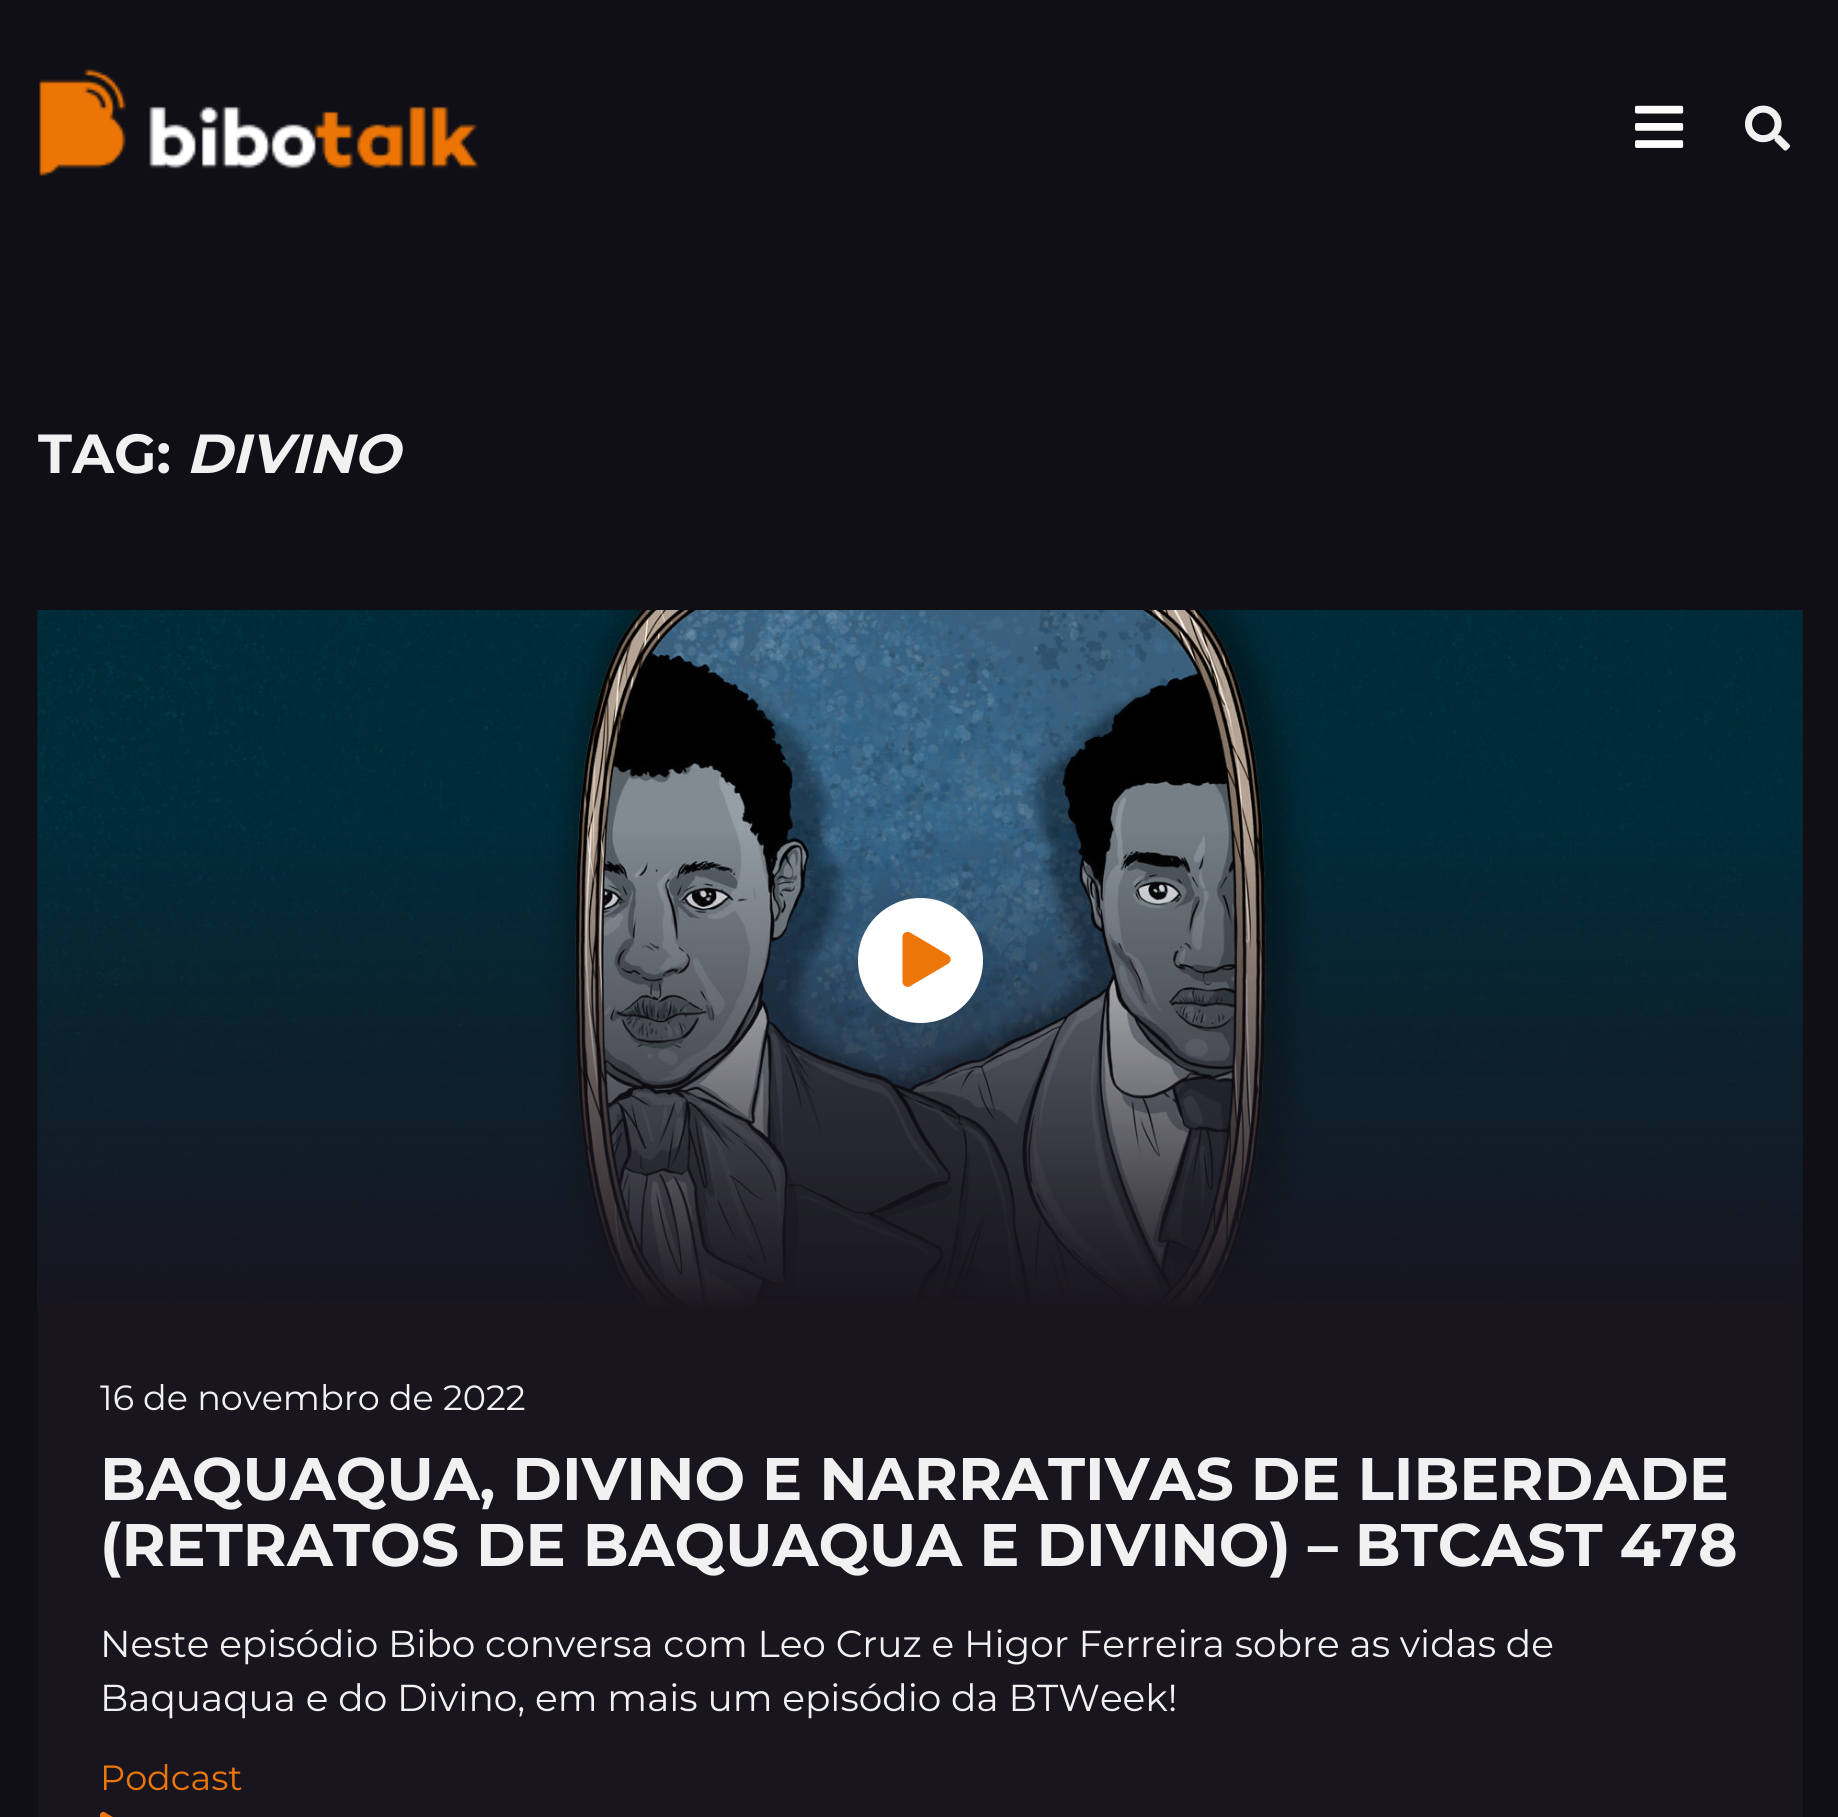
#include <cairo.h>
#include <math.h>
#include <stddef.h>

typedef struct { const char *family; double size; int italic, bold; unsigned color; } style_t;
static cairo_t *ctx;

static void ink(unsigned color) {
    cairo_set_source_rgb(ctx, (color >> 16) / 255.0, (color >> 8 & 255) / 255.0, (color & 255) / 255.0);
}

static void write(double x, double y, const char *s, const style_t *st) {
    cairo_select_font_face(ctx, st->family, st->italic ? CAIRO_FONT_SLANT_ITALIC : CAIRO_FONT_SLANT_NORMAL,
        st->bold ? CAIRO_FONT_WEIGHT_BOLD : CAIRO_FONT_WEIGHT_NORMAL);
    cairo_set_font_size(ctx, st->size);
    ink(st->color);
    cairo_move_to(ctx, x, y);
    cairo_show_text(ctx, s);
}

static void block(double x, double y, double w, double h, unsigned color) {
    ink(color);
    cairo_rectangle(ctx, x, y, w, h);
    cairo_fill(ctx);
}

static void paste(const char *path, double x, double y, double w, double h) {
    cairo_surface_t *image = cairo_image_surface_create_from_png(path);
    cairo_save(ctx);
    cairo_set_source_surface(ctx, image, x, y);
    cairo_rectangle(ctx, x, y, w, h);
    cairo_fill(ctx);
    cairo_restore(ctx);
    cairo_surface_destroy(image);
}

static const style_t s1 = {"Montserrat", 55, 0, 1, 0xf1f1f1};
static const style_t s2 = {"Montserrat", 55, 1, 1, 0xf1f1f1};
static const style_t s3 = {"Montserrat", 35, 0, 0, 0xf1f1f1};
static const style_t s4 = {"Montserrat", 60, 0, 1, 0xf1f1f1};
static const style_t s5 = {"Montserrat", 37.5, 0, 0, 0xf1f1f1};
static const style_t s6 = {"Montserrat", 35, 0, 0, 0xec7608};

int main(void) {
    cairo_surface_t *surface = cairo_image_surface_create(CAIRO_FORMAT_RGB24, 1838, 1817);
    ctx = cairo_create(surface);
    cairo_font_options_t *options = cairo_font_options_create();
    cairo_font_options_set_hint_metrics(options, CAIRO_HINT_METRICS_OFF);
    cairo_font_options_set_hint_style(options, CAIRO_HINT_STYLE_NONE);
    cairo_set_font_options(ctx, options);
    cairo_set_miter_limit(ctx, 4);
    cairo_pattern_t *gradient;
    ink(0x110f16);
    cairo_paint(ctx);
    paste("pic1.png", 39, 69, 440, 107);
    paste("pic2.png", 1635, 105, 49, 43);
    paste("pic3.png", 1745, 105, 45, 46);
    write(38, 473, "TAG:", &s1);
    write(186, 473, "DIVINO", &s2);
    block(38, 610, 1765, 1207, 0x18151f);
    paste("pic4.png", 37, 610, 1766, 700);
    gradient = cairo_pattern_create_linear(920, 820, 920, 1310);
    cairo_pattern_add_color_stop_rgba(gradient, 0, 0.094, 0.082, 0.122, 0);
    cairo_pattern_add_color_stop_rgba(gradient, 1, 0.094, 0.082, 0.122, 1);
    cairo_set_source(ctx, gradient);
    cairo_pattern_destroy(gradient);
    cairo_rectangle(ctx, 38, 831, 1765, 479);
    cairo_fill(ctx);
    ink(0xffffff);
    cairo_arc(ctx, 920.5, 960.5, 62.5, 0, 2 * M_PI);
    cairo_fill(ctx);
    paste("pic5.png", 902, 931, 49, 56);
    write(100, 1410, "16 de novembro de 2022", &s3);
    write(100, 1500, "BAQUAQUA, DIVINO E NARRATIVAS DE LIBERDADE", &s4);
    write(100, 1566, "(RETRATOS DE BAQUAQUA E DIVINO) – BTCAST 478", &s4);
    write(100, 1657, "Neste episódio Bibo conversa com Leo Cruz e Higor Ferreira sobre as vidas de", &s5);
    write(100, 1711, "Baquaqua e do Divino, em mais um episódio da BTWeek!", &s5);
    write(100, 1790, "Podcast", &s6);
    paste("pic6.png", 100, 1811, 13, 6);
    cairo_surface_write_to_png(surface, "screenshot.png");
    cairo_font_options_destroy(options);
    cairo_destroy(ctx);
    cairo_surface_destroy(surface);
    return 0;
}
